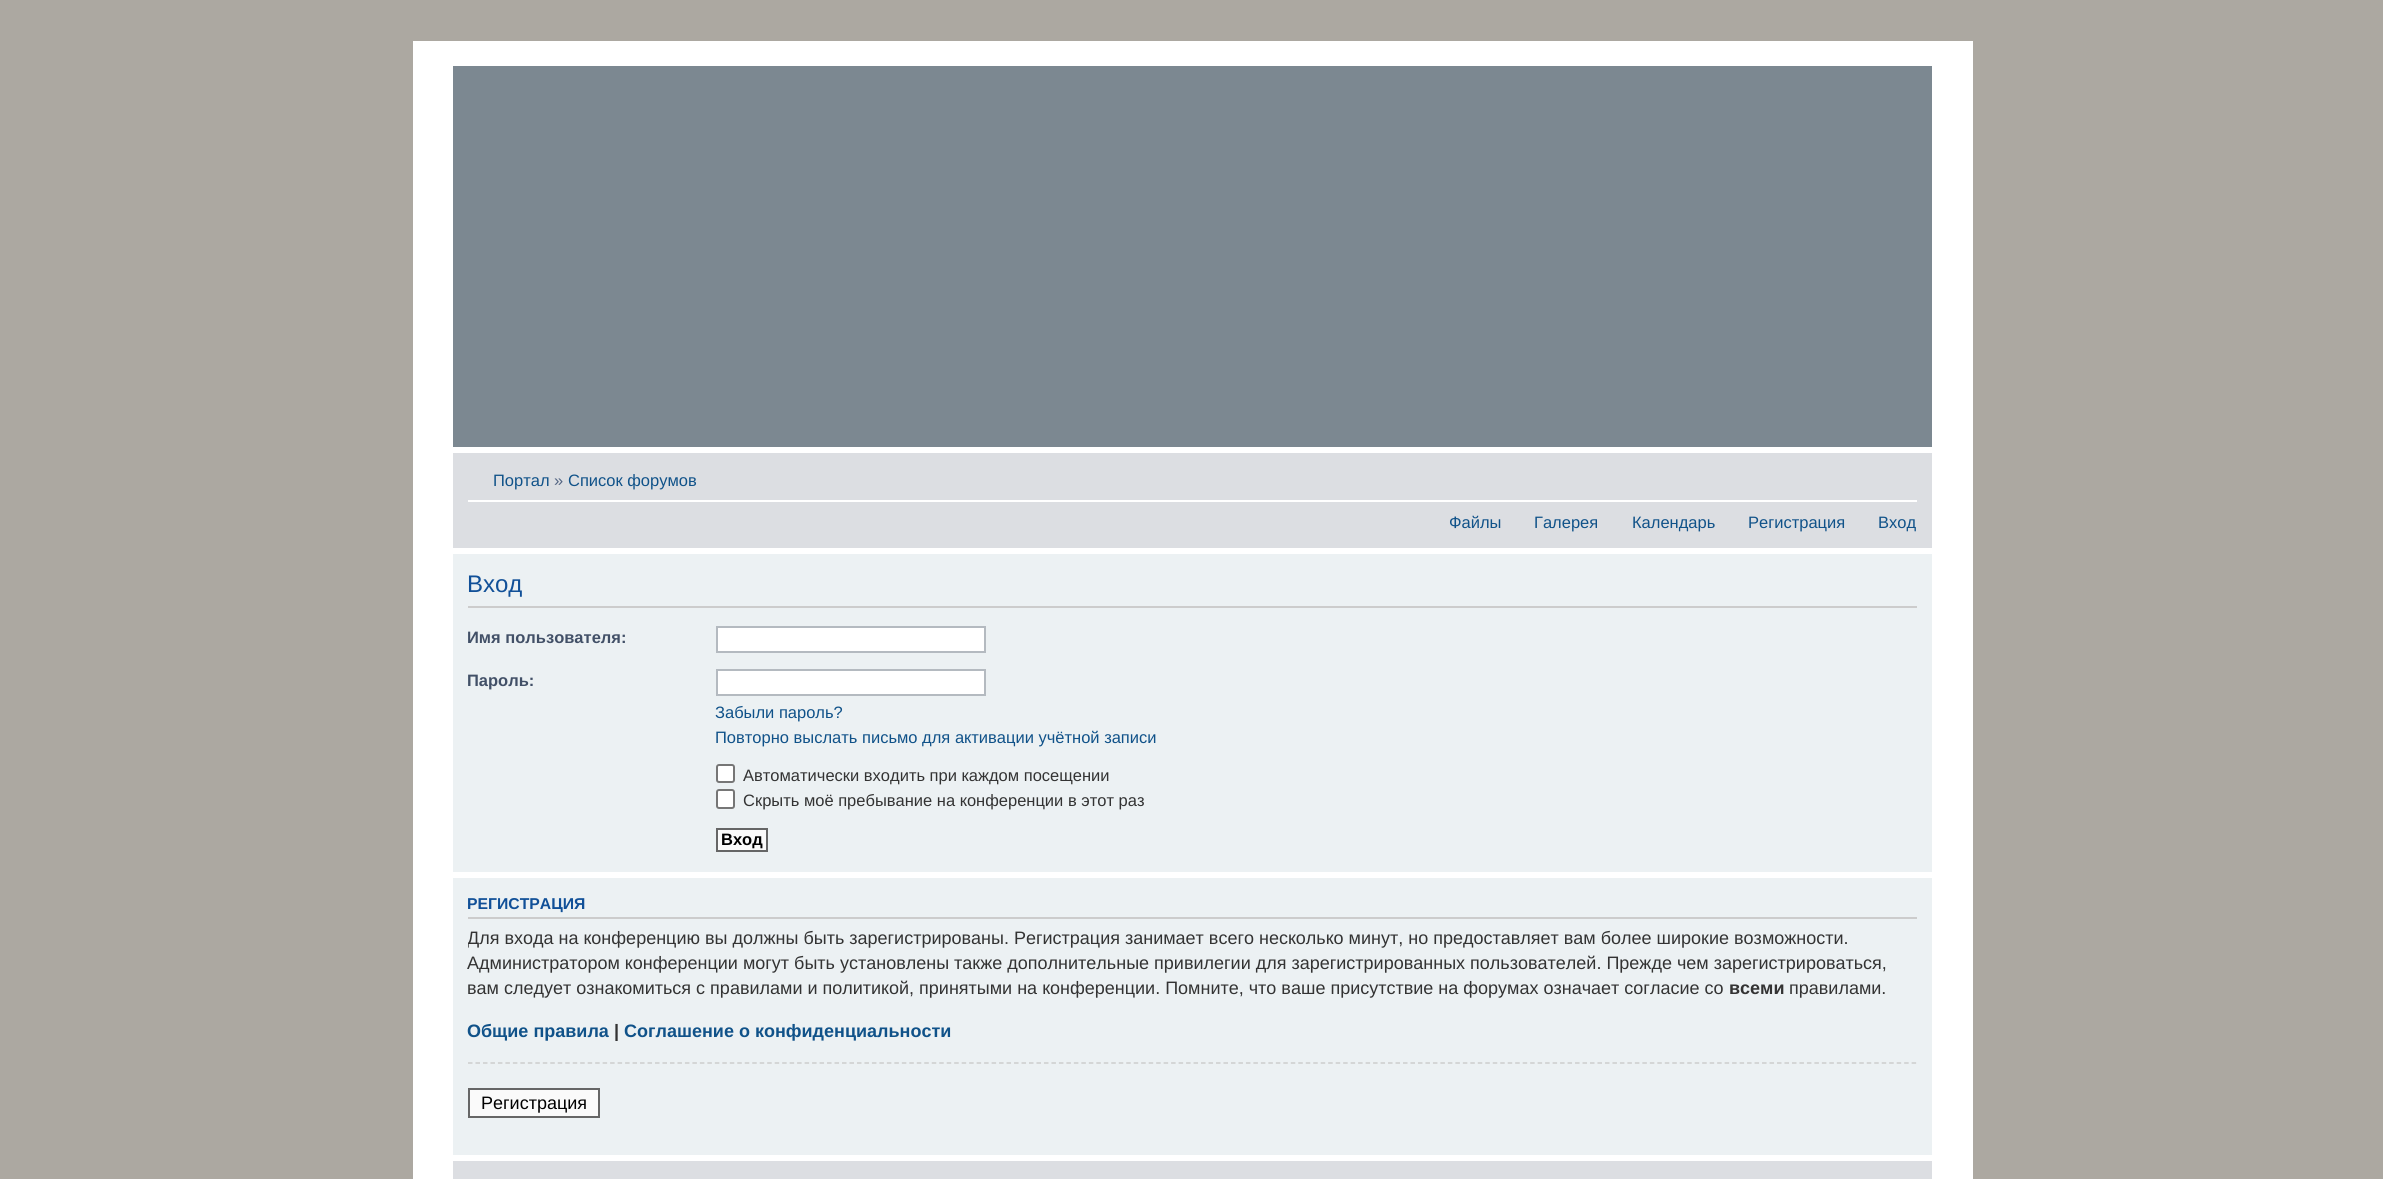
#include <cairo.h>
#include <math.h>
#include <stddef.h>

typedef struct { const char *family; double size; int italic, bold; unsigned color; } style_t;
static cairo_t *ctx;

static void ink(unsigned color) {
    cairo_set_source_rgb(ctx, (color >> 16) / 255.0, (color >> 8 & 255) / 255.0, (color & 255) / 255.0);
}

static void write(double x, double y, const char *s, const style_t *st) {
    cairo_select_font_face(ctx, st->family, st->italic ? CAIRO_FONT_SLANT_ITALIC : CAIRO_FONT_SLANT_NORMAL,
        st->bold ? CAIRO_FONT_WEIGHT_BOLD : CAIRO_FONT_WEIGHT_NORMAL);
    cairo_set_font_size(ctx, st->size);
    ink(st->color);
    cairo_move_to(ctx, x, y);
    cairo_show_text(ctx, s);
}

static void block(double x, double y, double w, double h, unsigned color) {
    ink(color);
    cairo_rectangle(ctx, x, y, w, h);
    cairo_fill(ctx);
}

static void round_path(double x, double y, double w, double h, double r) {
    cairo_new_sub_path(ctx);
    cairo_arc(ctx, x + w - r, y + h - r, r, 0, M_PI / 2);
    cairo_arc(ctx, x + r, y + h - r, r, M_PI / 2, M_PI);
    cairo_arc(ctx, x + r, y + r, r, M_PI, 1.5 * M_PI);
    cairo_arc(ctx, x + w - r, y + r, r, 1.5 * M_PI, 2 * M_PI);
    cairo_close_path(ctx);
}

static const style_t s1 = {"Liberation Sans", 16.5, 0, 0, 0x105289};
static const style_t s2 = {"Liberation Sans", 16.5, 0, 0, 0x536482};
static const style_t s3 = {"Liberation Sans", 24, 0, 0, 0x115098};
static const style_t s4 = {"Liberation Sans", 16.5, 0, 1, 0x425067};
static const style_t s5 = {"Liberation Sans", 16.5, 0, 0, 0x333333};
static const style_t s6 = {"Liberation Sans", 16.5, 0, 1, 0x000000};
static const style_t s7 = {"Liberation Sans", 15.75, 0, 1, 0x115098};
static const style_t s8 = {"Liberation Sans", 18, 0, 0, 0x333333};
static const style_t s9 = {"Liberation Sans", 18, 0, 1, 0x333333};
static const style_t s10 = {"Liberation Sans", 18, 0, 1, 0x105289};
static const style_t s11 = {"Liberation Sans", 18, 0, 0, 0x000000};

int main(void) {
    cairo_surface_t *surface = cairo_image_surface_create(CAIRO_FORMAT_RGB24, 2383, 1179);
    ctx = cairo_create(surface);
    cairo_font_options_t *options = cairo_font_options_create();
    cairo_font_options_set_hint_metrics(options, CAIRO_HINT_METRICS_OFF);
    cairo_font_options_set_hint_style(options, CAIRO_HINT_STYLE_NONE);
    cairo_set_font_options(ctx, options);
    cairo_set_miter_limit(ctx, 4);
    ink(0xaca8a1);
    cairo_paint(ctx);
    block(413, 41, 1560, 1138, 0xffffff);
    block(453, 66, 1479, 381, 0x7c8891);
    block(453, 453, 1479, 95, 0xdcdee2);
    block(468, 500, 1449, 2, 0xffffff);
    write(493, 486, "Портал", &s1);
    write(554, 486, "»", &s2);
    write(568, 486, "Список форумов", &s1);
    write(1449, 528, "Файлы", &s1);
    write(1534, 528, "Галерея", &s1);
    write(1632, 528, "Календарь", &s1);
    write(1748, 528, "Регистрация", &s1);
    write(1878, 528, "Вход", &s1);
    block(453, 554, 1479, 318, 0xecf1f3);
    block(468, 606, 1449, 2, 0xcccccc);
    write(467, 592, "Вход", &s3);
    write(467, 643, "Имя пользователя:", &s4);
    ink(0xffffff);
    cairo_rectangle(ctx, 717, 627, 268, 25);
    cairo_fill_preserve(ctx);
    ink(0xb4bac0);
    cairo_stroke(ctx);
    write(467, 686, "Пароль:", &s4);
    ink(0xffffff);
    cairo_rectangle(ctx, 717, 670, 268, 25);
    cairo_fill_preserve(ctx);
    ink(0xb4bac0);
    cairo_stroke(ctx);
    write(715, 718, "Забыли пароль?", &s1);
    write(715, 743, "Повторно выслать письмо для активации учётной записи", &s1);
    ink(0xffffff);
    round_path(717, 765, 17, 17, 2);
    cairo_fill_preserve(ctx);
    ink(0x767676);
    cairo_stroke(ctx);
    write(743, 781, "Автоматически входить при каждом посещении", &s5);
    ink(0xffffff);
    round_path(717, 790, 17, 18, 2);
    cairo_fill_preserve(ctx);
    ink(0x767676);
    cairo_stroke(ctx);
    write(743, 806, "Скрыть моё пребывание на конференции в этот раз", &s5);
    ink(0xfafafa);
    cairo_rectangle(ctx, 717, 829, 50, 22);
    cairo_fill_preserve(ctx);
    ink(0x666666);
    cairo_stroke(ctx);
    write(721, 845, "Вход", &s6);
    block(453, 878, 1479, 277, 0xecf1f3);
    block(468, 917, 1449, 2, 0xcccccc);
    write(467, 909, "РЕГИСТРАЦИЯ", &s7);
    cairo_save(ctx);
    cairo_rectangle(ctx, 468, 885, 1449, 263);
    cairo_clip(ctx);
    write(467, 944, "Для входа на конференцию вы должны быть зарегистрированы. Регистрация занимает всего несколько минут, но предоставляет вам более широкие возможности.", &s8);
    cairo_restore(ctx);
    write(467, 969, "Администратором конференции могут быть установлены также дополнительные привилегии для зарегистрированных пользователей. Прежде чем зарегистрироваться,", &s8);
    write(467, 994, "вам следует ознакомиться с правилами и политикой, принятыми на конференции. Помните, что ваше присутствие на форумах означает согласие со", &s8);
    write(1729, 994, "всеми", &s9);
    write(1789, 994, "правилами.", &s8);
    write(467, 1037, "Общие правила", &s10);
    write(614, 1037, "|", &s9);
    write(624, 1037, "Соглашение о конфиденциальности", &s10);
    cairo_new_path(ctx);
    cairo_move_to(ctx, 468, 1063);
    cairo_line_to(ctx, 1917, 1063);
    ink(0xcccccc);
    cairo_set_line_width(ctx, 1.5);
    cairo_set_dash(ctx, (double[]){4.5, 2.98}, 2, 0);
    cairo_stroke(ctx);
    ink(0xfafafa);
    cairo_rectangle(ctx, 469, 1089, 130, 28);
    cairo_fill_preserve(ctx);
    ink(0x666666);
    cairo_set_line_width(ctx, 2);
    cairo_set_dash(ctx, NULL, 0, 0);
    cairo_stroke(ctx);
    write(481, 1109, "Регистрация", &s11);
    block(453, 1161, 1479, 18, 0xdcdee2);
    cairo_surface_write_to_png(surface, "screenshot.png");
    cairo_font_options_destroy(options);
    cairo_destroy(ctx);
    cairo_surface_destroy(surface);
    return 0;
}
